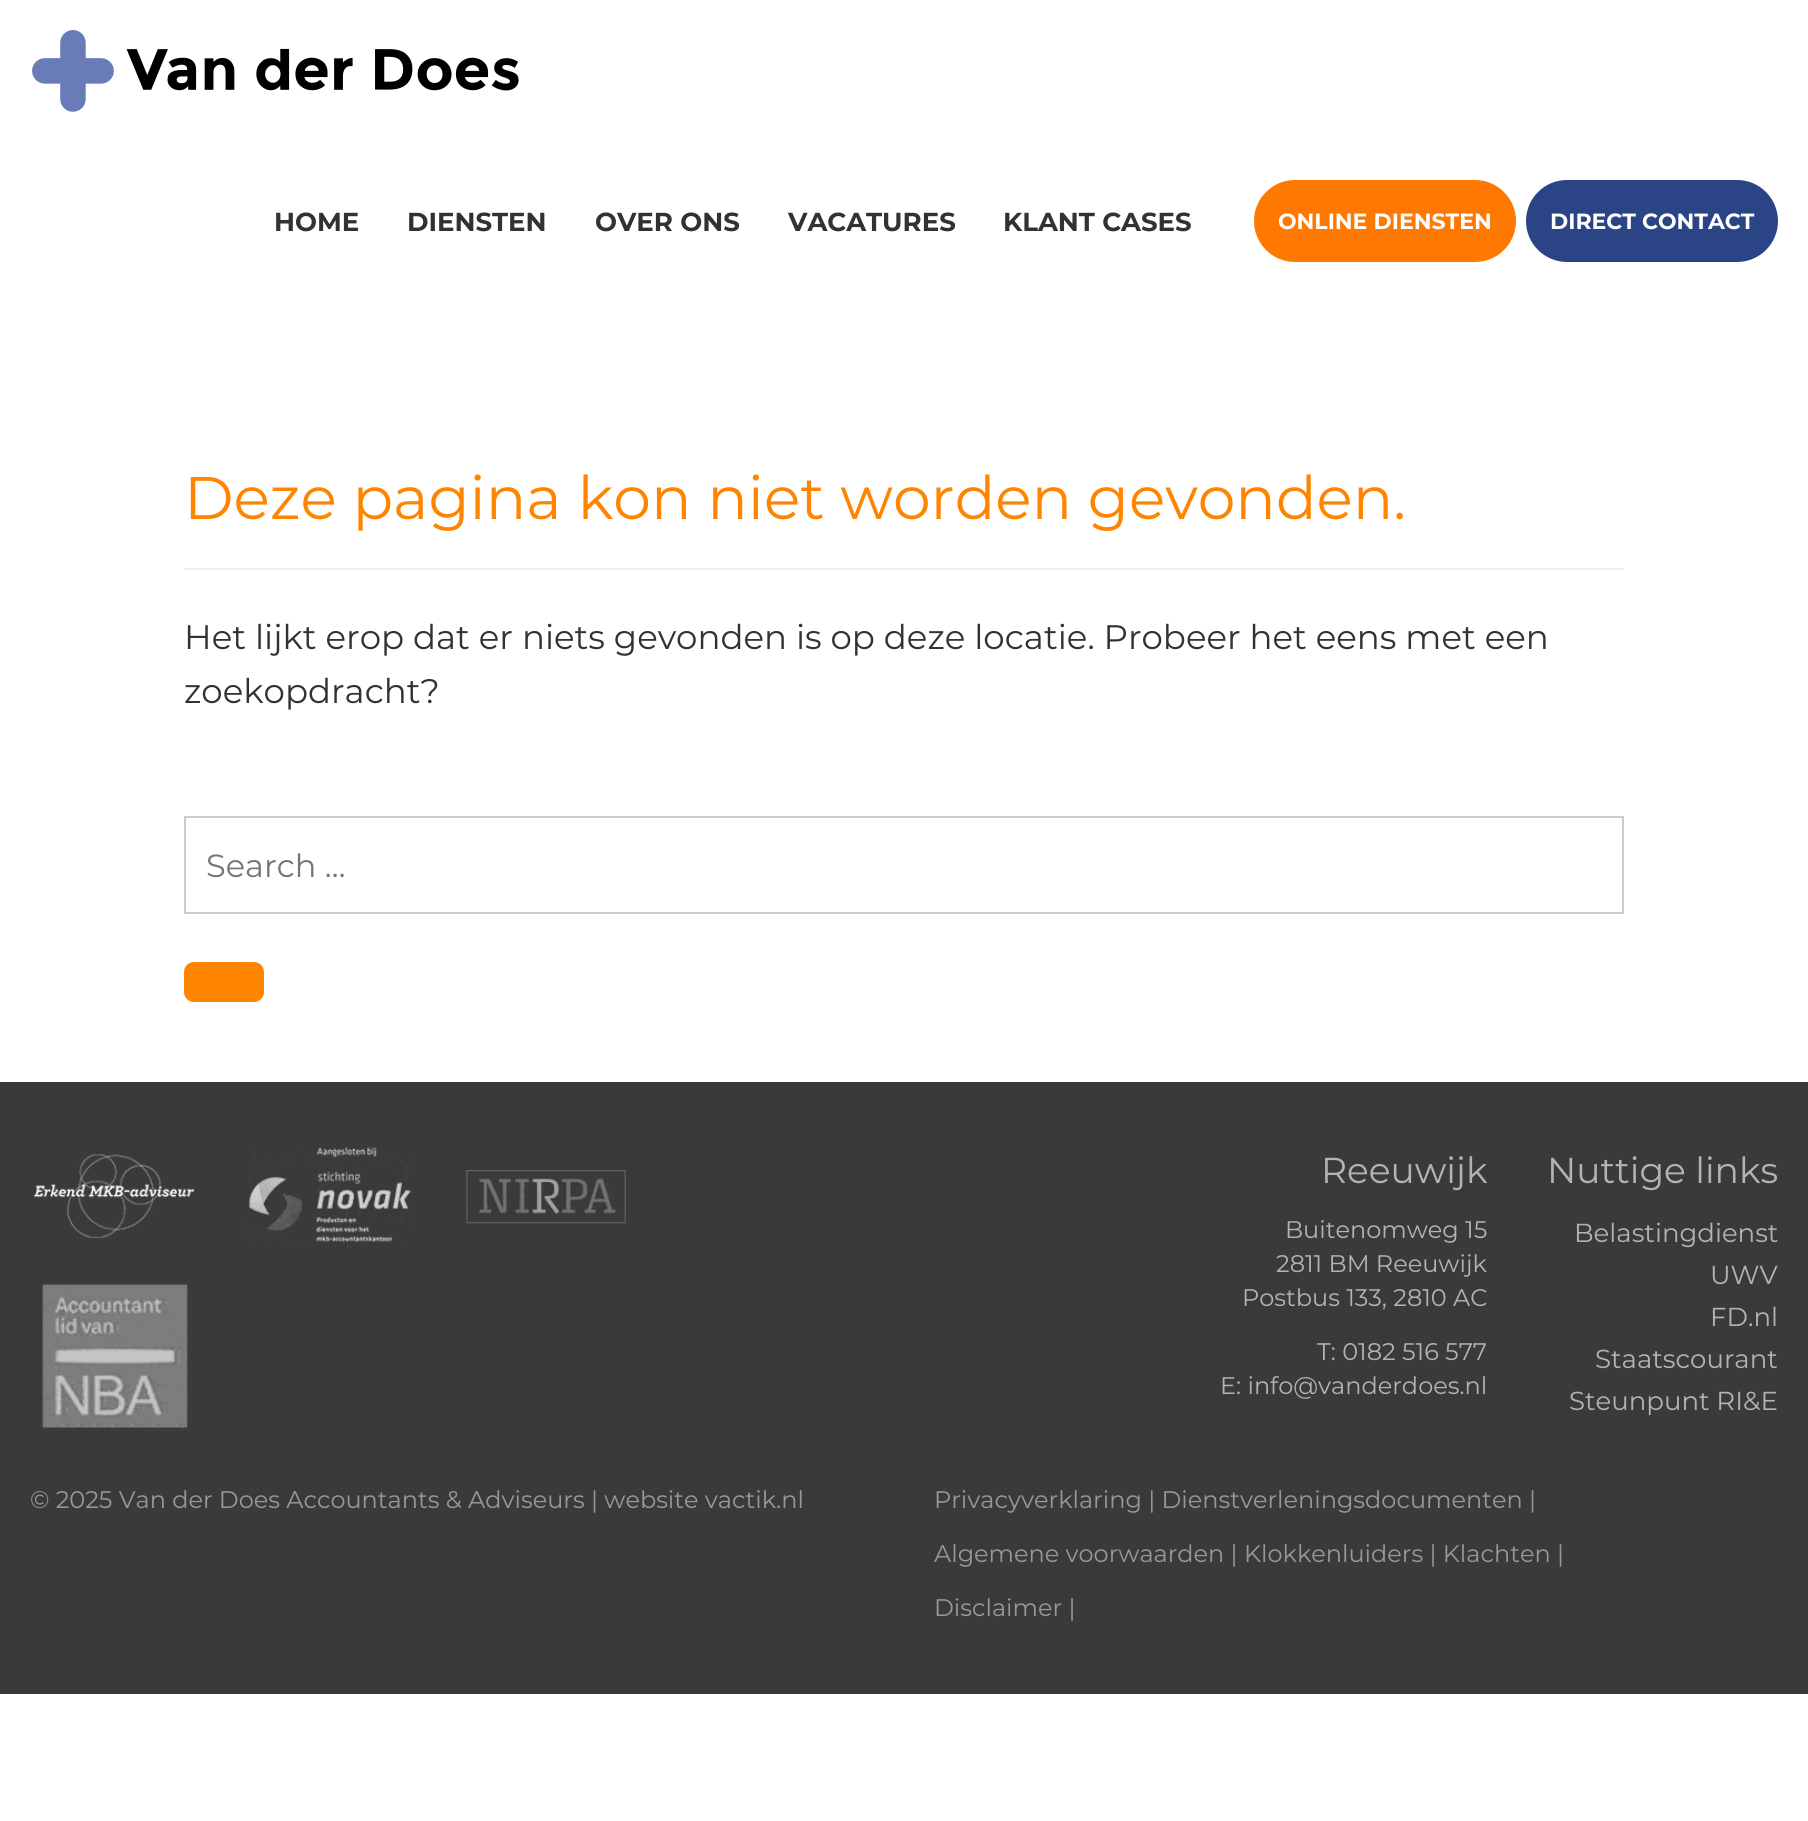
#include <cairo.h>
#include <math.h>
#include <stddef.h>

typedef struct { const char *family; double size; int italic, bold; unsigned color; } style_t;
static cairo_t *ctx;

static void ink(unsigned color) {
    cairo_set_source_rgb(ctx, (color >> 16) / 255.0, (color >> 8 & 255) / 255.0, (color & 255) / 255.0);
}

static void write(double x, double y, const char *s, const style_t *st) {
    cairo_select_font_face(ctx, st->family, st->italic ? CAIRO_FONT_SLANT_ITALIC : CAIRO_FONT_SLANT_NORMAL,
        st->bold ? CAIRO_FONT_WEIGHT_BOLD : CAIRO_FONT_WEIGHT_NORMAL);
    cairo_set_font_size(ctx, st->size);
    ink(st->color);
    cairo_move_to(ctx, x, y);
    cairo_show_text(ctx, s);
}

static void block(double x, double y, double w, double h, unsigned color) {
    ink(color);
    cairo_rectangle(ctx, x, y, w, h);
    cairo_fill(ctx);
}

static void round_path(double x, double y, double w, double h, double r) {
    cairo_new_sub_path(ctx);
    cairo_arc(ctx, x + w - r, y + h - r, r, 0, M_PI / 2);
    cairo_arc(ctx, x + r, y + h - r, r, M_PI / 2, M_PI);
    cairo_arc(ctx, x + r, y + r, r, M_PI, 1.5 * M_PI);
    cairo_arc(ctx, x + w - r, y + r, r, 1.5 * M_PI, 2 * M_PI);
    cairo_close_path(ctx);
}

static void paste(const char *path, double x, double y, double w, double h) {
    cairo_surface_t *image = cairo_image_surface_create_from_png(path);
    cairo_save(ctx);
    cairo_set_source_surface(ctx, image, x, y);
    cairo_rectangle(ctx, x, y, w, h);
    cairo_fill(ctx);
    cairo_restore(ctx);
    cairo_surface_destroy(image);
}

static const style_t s1 = {"Montserrat", 26, 0, 1, 0x313236};
static const style_t s2 = {"Montserrat", 22, 0, 1, 0xffffff};
static const style_t s3 = {"Montserrat", 60, 0, 0, 0xff8400};
static const style_t s4 = {"Montserrat", 34, 0, 0, 0x313236};
static const style_t s5 = {"Montserrat", 32, 0, 0, 0x757575};
static const style_t s6 = {"Montserrat", 36, 0, 0, 0xb3b3b3};
static const style_t s7 = {"Montserrat", 24, 0, 0, 0xb3b3b3};
static const style_t s8 = {"Montserrat", 26, 0, 0, 0xb3b3b3};
static const style_t s9 = {"Montserrat", 24, 0, 0, 0x989898};

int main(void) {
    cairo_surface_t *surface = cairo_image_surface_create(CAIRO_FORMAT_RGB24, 1808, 1821);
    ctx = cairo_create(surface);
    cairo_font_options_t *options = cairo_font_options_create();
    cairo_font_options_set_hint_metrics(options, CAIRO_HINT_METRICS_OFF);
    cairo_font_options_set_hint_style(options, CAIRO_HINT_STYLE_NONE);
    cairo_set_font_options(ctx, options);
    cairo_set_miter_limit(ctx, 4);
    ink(0xffffff);
    cairo_paint(ctx);
    paste("pic1.png", 32, 30, 487, 82);
    write(274, 231, "HOME", &s1);
    write(407, 231, "DIENSTEN", &s1);
    write(595, 231, "OVER ONS", &s1);
    write(788, 231, "VACATURES", &s1);
    write(1003, 231, "KLANT CASES", &s1);
    ink(0xff7800);
    round_path(1254, 180, 262, 82, 41);
    cairo_fill(ctx);
    write(1278, 229, "ONLINE DIENSTEN", &s2);
    ink(0x2b4486);
    round_path(1526, 180, 252, 82, 41);
    cairo_fill(ctx);
    write(1550, 229, "DIRECT CONTACT", &s2);
    block(184, 568, 1440, 2, 0xeeeeee);
    write(184, 519, "Deze pagina kon niet worden gevonden.", &s3);
    write(184, 649, "Het lijkt erop dat er niets gevonden is op deze locatie. Probeer het eens met een", &s4);
    write(184, 703, "zoekopdracht?", &s4);
    cairo_rectangle(ctx, 185, 817, 1438, 96);
    ink(0xcccccc);
    cairo_stroke(ctx);
    write(206, 877, "Search …", &s5);
    ink(0xff8400);
    round_path(184, 962, 80, 40, 10);
    cairo_fill(ctx);
    block(0, 1082, 1808, 612, 0x3a3a3a);
    paste("pic2.png", 34, 1154, 161, 84);
    paste("pic3.png", 246, 1147, 168, 101);
    paste("pic4.png", 466, 1170, 160, 54);
    paste("pic5.png", 42, 1284, 146, 144);
    write(1321, 1183, "Reeuwijk", &s6);
    write(1285, 1238, "Buitenomweg 15", &s7);
    write(1276, 1272, "2811 BM Reeuwijk", &s7);
    write(1242, 1306, "Postbus 133, 2810 AC", &s7);
    write(1317, 1360, "T: 0182 516 577", &s7);
    write(1220, 1394, "E: info@vanderdoes.nl", &s7);
    write(1547, 1183, "Nuttige links", &s6);
    write(1574, 1242, "Belastingdienst", &s8);
    write(1710, 1284, "UWV", &s8);
    write(1710, 1326, "FD.nl", &s8);
    write(1595, 1368, "Staatscourant", &s8);
    write(1569, 1410, "Steunpunt RI&E", &s8);
    write(30, 1508, "© 2025 Van der Does Accountants & Adviseurs | website vactik.nl", &s9);
    write(934, 1508, "Privacyverklaring | Dienstverleningsdocumenten |", &s9);
    write(934, 1562, "Algemene voorwaarden | Klokkenluiders | Klachten |", &s9);
    write(934, 1616, "Disclaimer |", &s9);
    cairo_surface_write_to_png(surface, "screenshot.png");
    cairo_font_options_destroy(options);
    cairo_destroy(ctx);
    cairo_surface_destroy(surface);
    return 0;
}
